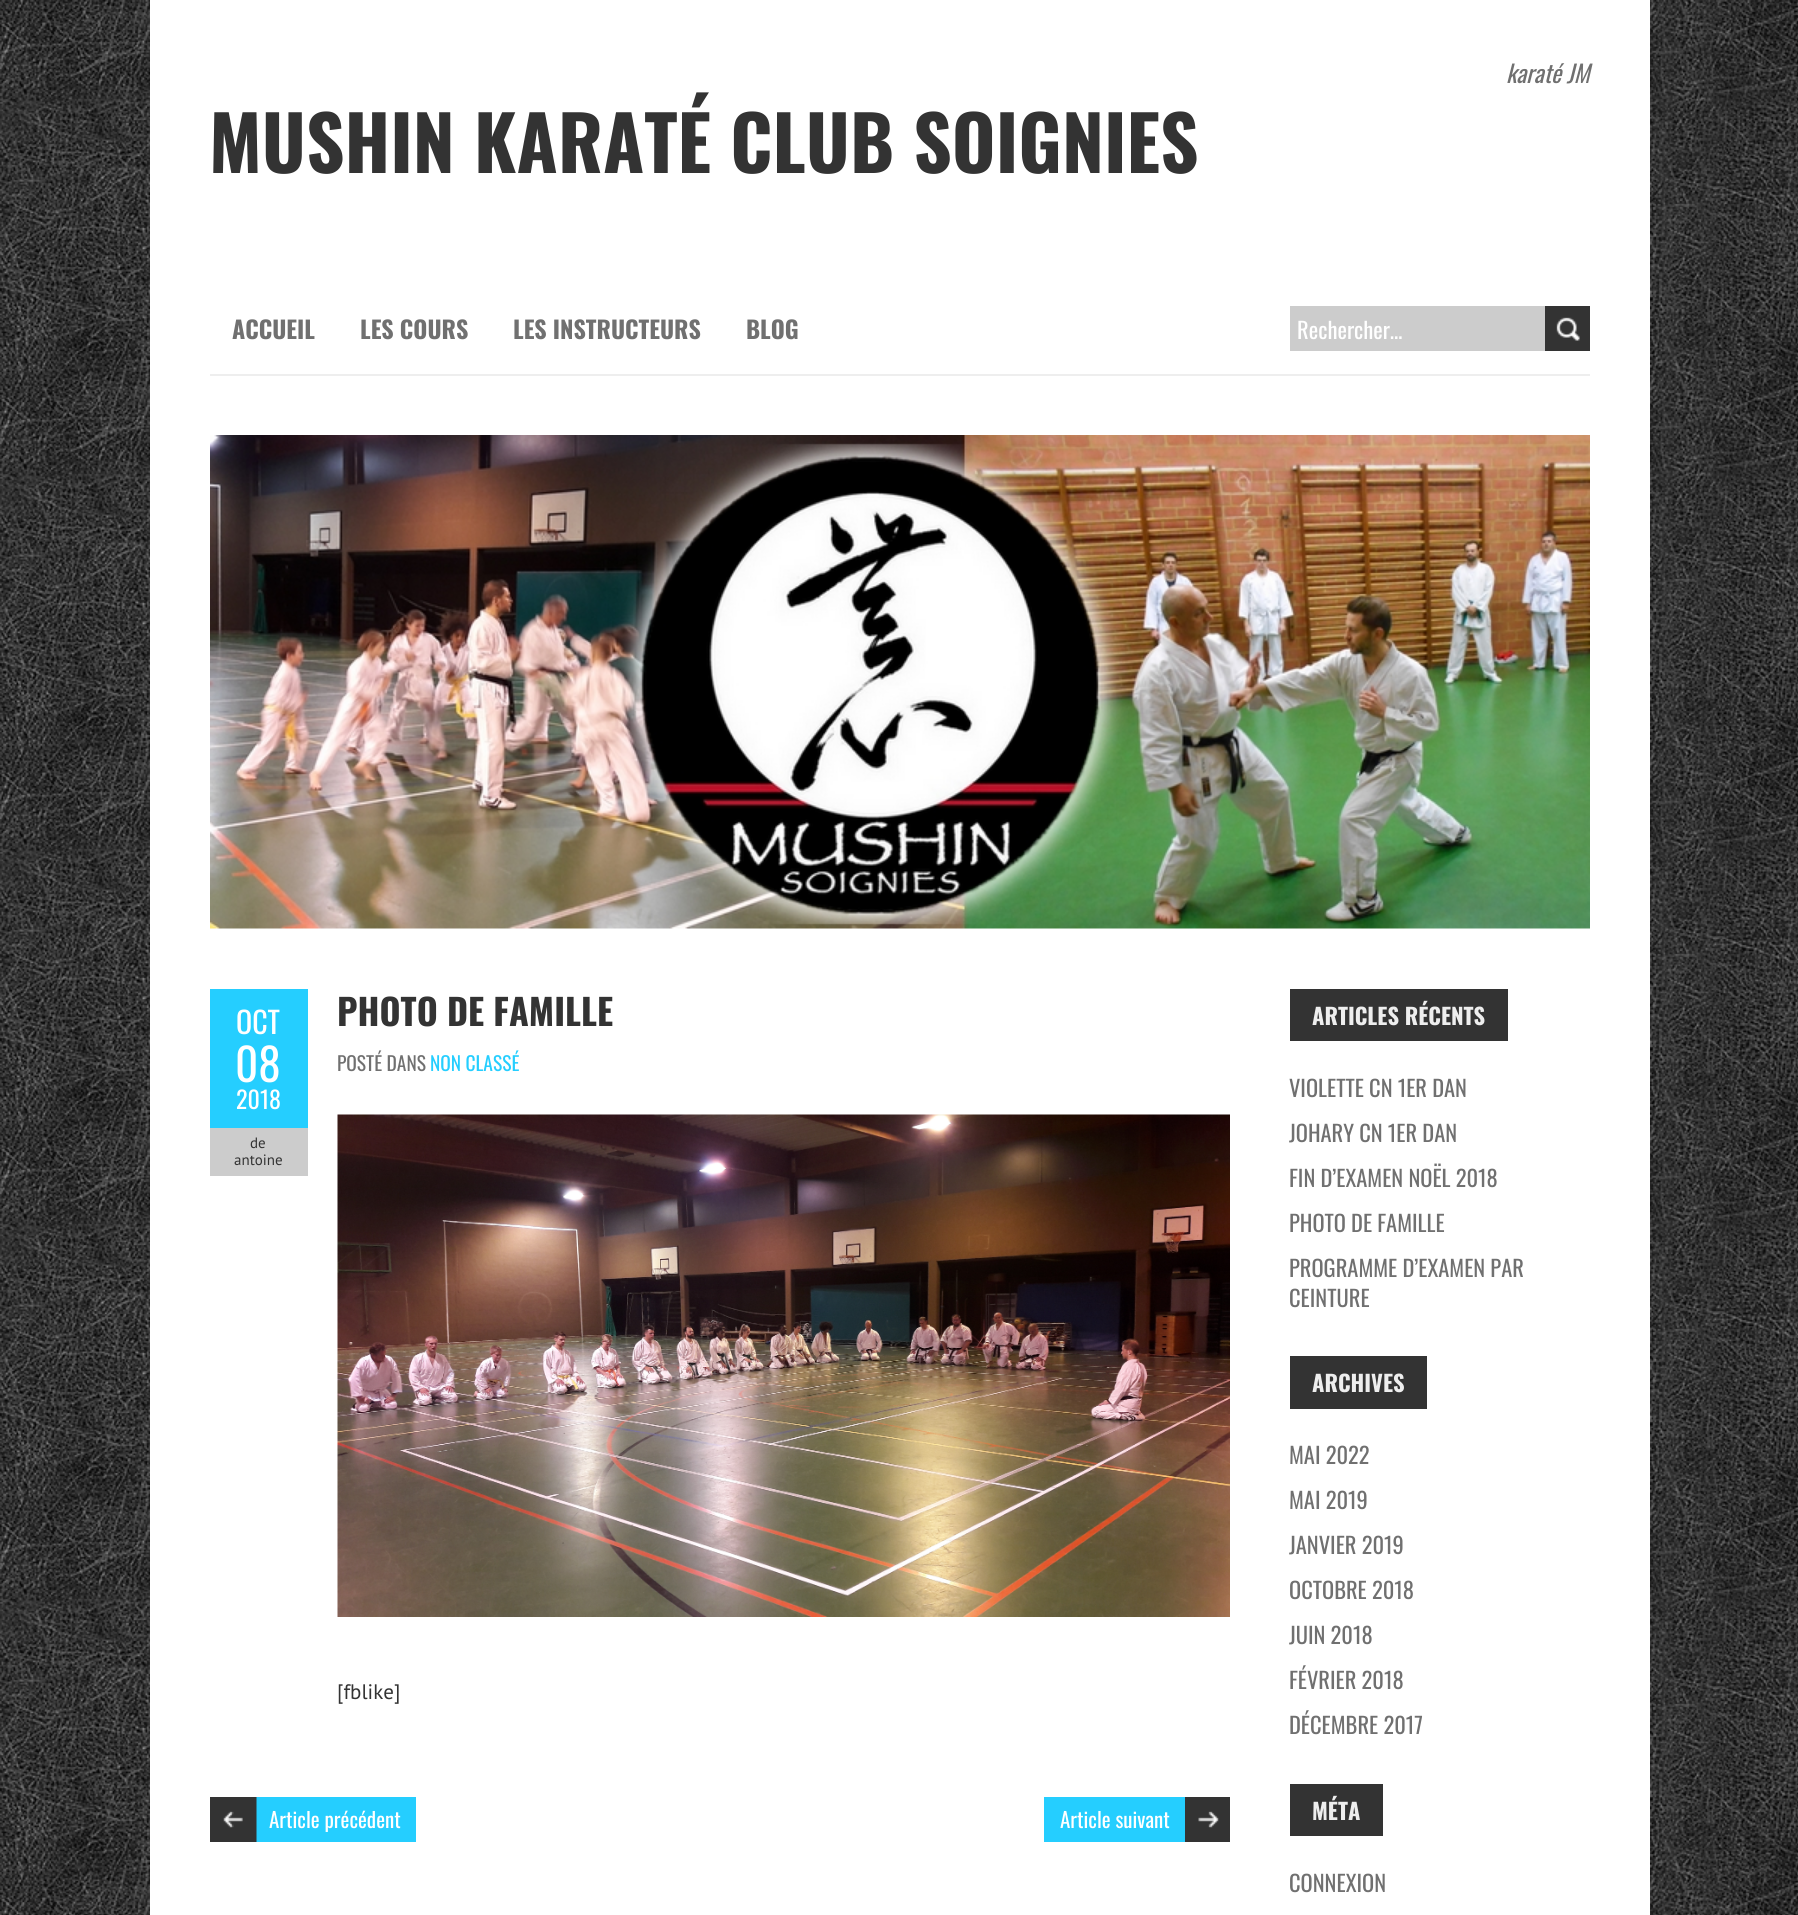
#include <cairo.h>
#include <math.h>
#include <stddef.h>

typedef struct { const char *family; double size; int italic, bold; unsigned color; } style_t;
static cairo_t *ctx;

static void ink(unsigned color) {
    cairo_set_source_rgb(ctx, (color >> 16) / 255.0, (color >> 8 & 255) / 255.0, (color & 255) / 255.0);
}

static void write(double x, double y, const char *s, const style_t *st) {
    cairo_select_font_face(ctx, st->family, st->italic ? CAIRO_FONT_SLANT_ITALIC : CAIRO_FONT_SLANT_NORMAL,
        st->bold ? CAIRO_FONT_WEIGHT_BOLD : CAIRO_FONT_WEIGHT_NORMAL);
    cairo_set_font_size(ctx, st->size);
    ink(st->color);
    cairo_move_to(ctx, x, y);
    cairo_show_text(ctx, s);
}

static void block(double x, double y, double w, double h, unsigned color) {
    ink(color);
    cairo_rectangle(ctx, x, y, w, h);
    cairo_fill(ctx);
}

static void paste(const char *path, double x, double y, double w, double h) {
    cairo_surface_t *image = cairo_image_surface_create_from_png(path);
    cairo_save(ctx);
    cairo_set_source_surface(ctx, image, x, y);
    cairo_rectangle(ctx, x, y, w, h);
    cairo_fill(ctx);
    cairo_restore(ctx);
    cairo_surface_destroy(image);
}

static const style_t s1 = {"Oswald", 24, 1, 0, 0x707070};
static const style_t s2 = {"Oswald", 75, 0, 1, 0x333333};
static const style_t s3 = {"Oswald", 24, 0, 1, 0x707070};
static const style_t s4 = {"Oswald", 22.5, 0, 0, 0xffffff};
static const style_t s5 = {"Oswald", 30, 0, 0, 0xffffff};
static const style_t s6 = {"Oswald", 45, 0, 0, 0xffffff};
static const style_t s7 = {"Oswald", 24, 0, 0, 0xffffff};
static const style_t s8 = {"PT Sans", 15, 0, 0, 0x333333};
static const style_t s9 = {"Oswald", 36, 0, 1, 0x333333};
static const style_t s10 = {"Oswald", 19.5, 0, 0, 0x707070};
static const style_t s11 = {"Oswald", 19.5, 0, 0, 0x25ceff};
static const style_t s12 = {"PT Sans", 21, 0, 0, 0x333333};
static const style_t s13 = {"Oswald", 21, 0, 0, 0xffffff};
static const style_t s14 = {"Oswald", 22.5, 0, 1, 0xeeeeee};
static const style_t s15 = {"Oswald", 22.5, 0, 0, 0x707070};

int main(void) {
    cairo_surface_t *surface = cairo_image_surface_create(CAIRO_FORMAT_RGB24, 1798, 1915);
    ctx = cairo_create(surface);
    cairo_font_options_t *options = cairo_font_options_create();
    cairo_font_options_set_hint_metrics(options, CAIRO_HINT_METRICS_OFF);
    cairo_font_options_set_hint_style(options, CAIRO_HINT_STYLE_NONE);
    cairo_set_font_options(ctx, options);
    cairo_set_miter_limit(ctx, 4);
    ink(0xffffff);
    cairo_paint(ctx);
    paste("pic1.png", 0, 0, 1798, 1915);
    block(150, 0, 1500, 1915, 0xffffff);
    write(1506, 83, "karaté JM", &s1);
    write(209, 173, "MUSHIN KARATÉ CLUB SOIGNIES", &s2);
    block(210, 374, 1380, 2, 0xeeeeee);
    write(232, 339, "ACCUEIL", &s3);
    write(360, 339, "LES COURS", &s3);
    write(513, 339, "LES INSTRUCTEURS", &s3);
    write(746, 339, "BLOG", &s3);
    block(1290, 306, 255, 45, 0xcccccc);
    write(1297, 339, "Rechercher…", &s4);
    block(1545, 306, 45, 45, 0x333333);
    paste("pic2.png", 1556, 317, 24, 24);
    paste("pic3.png", 210, 435, 1380, 494);
    block(210, 989, 98, 139, 0x25ceff);
    write(236, 1034, "OCT", &s5);
    write(235, 1082, "08", &s6);
    write(236, 1109, "2018", &s7);
    block(210, 1128, 98, 48, 0xcccccc);
    write(250, 1148, "de", &s8);
    write(234, 1165, "antoine", &s8);
    write(337, 1026, "PHOTO DE FAMILLE", &s9);
    write(337, 1071, "POSTÉ DANS", &s10);
    write(430, 1071, "NON CLASSÉ", &s11);
    paste("pic4.png", 337, 1114, 893, 503);
    write(337, 1699, "[fblike]", &s12);
    block(256, 1797, 160, 45, 0x25ceff);
    paste("pic5.png", 210, 1797, 47, 45);
    write(269, 1828, "Article précédent", &s13);
    block(1044, 1797, 141, 45, 0x25ceff);
    paste("pic6.png", 1185, 1797, 45, 45);
    write(1060, 1828, "Article suivant", &s13);
    block(1290, 989, 218, 52, 0x333333);
    write(1312, 1025, "ARTICLES RÉCENTS", &s14);
    write(1289, 1097, "VIOLETTE CN 1ER DAN", &s15);
    write(1289, 1142, "JOHARY CN 1ER DAN", &s15);
    write(1289, 1187, "FIN D’EXAMEN NOËL 2018", &s15);
    write(1289, 1232, "PHOTO DE FAMILLE", &s15);
    write(1289, 1277, "PROGRAMME D’EXAMEN PAR", &s15);
    write(1289, 1307, "CEINTURE", &s15);
    block(1290, 1356, 137, 53, 0x333333);
    write(1312, 1392, "ARCHIVES", &s14);
    write(1289, 1464, "MAI 2022", &s15);
    write(1289, 1509, "MAI 2019", &s15);
    write(1289, 1554, "JANVIER 2019", &s15);
    write(1289, 1599, "OCTOBRE 2018", &s15);
    write(1289, 1644, "JUIN 2018", &s15);
    write(1289, 1689, "FÉVRIER 2018", &s15);
    write(1289, 1734, "DÉCEMBRE 2017", &s15);
    block(1290, 1784, 93, 52, 0x333333);
    write(1312, 1820, "MÉTA", &s14);
    write(1289, 1892, "CONNEXION", &s15);
    cairo_surface_write_to_png(surface, "screenshot.png");
    cairo_font_options_destroy(options);
    cairo_destroy(ctx);
    cairo_surface_destroy(surface);
    return 0;
}
